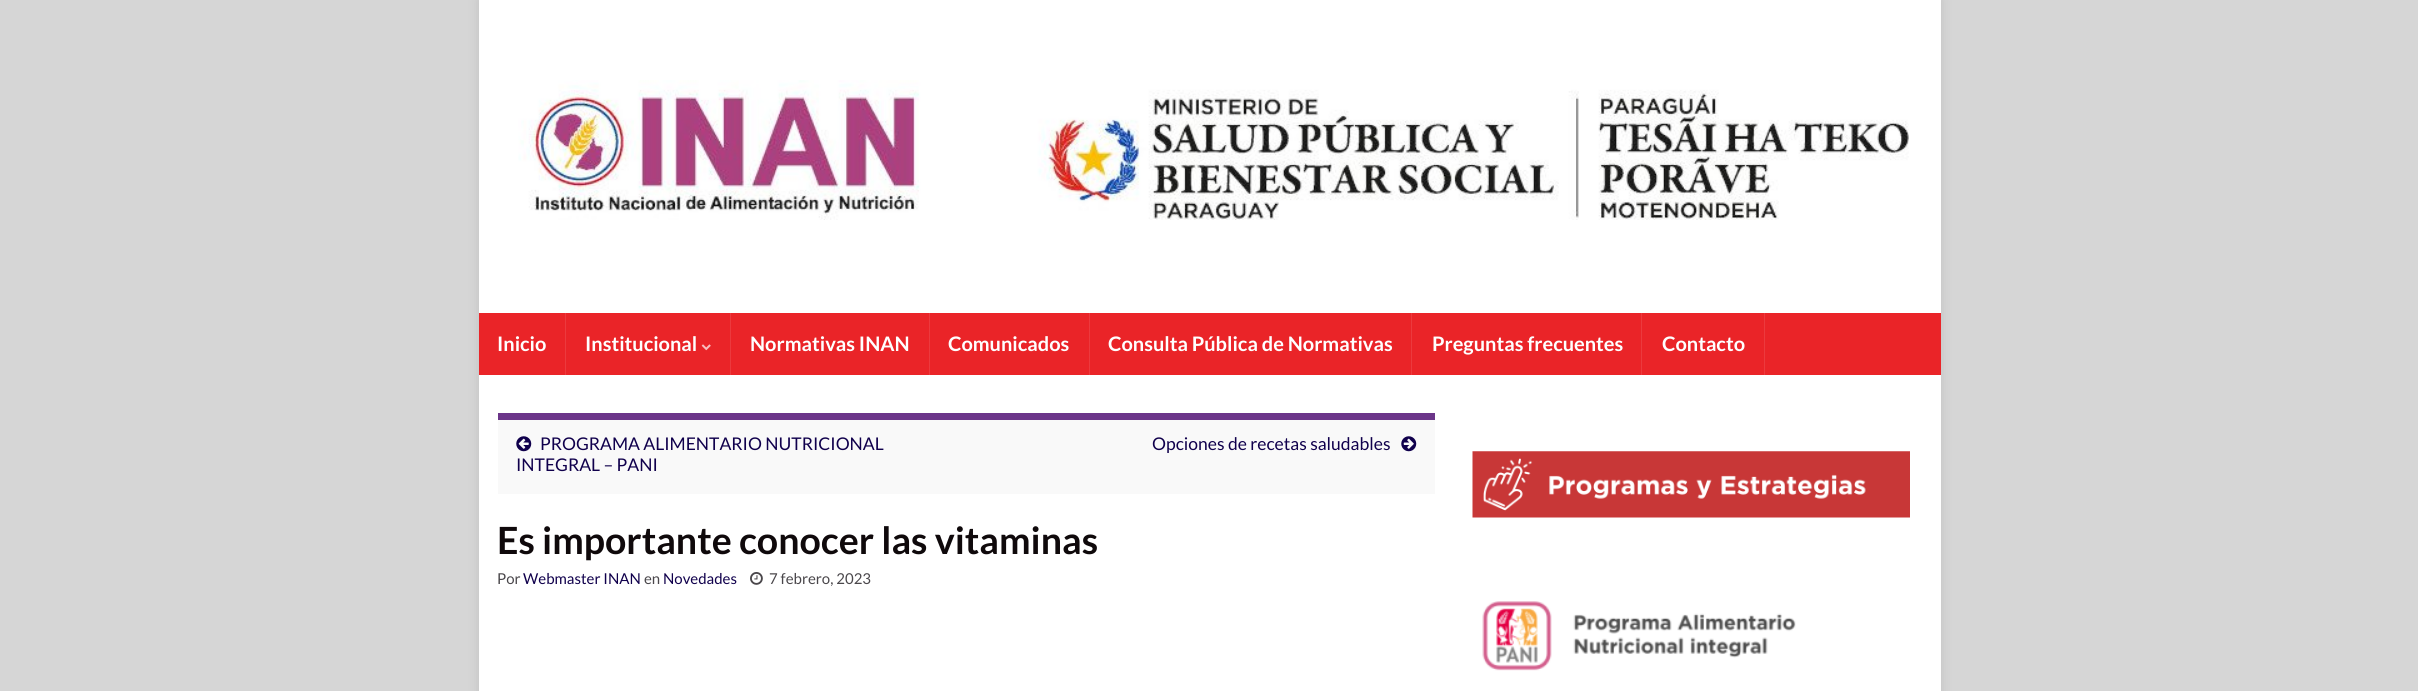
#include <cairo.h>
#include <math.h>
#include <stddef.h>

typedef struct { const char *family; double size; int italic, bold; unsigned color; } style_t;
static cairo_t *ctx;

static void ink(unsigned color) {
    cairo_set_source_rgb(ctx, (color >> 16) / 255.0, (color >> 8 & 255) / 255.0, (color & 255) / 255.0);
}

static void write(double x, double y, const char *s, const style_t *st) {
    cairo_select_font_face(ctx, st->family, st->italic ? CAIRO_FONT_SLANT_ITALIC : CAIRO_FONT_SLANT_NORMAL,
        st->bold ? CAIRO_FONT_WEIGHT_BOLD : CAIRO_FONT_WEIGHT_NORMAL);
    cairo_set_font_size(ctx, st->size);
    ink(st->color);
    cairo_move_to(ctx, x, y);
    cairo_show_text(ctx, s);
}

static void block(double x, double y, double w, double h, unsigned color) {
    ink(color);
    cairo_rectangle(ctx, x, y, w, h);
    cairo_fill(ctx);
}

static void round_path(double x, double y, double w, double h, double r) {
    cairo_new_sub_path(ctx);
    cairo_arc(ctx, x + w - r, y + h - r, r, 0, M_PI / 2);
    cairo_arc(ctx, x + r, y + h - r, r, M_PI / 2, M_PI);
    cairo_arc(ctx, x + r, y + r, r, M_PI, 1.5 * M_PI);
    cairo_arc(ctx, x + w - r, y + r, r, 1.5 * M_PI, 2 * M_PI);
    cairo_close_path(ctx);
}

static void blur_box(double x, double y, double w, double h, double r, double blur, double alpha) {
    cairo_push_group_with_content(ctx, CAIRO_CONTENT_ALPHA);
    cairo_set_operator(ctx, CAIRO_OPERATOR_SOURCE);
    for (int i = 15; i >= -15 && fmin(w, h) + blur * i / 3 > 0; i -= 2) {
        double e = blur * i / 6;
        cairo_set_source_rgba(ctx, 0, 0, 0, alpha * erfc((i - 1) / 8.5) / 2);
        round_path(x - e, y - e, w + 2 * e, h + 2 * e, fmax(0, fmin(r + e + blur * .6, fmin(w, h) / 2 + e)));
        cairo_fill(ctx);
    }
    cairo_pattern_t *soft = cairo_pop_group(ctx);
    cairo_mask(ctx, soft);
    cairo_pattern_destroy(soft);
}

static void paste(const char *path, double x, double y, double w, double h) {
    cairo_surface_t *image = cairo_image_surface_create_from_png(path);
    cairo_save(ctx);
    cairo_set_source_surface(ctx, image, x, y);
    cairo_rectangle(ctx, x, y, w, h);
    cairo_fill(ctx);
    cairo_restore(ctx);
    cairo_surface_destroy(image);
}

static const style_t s1 = {"Lato", 20, 0, 1, 0xffffff};
static const style_t s2 = {"Lato", 17.5, 0, 0, 0x10004c};
static const style_t s3 = {"Lato", 37.5, 0, 1, 0x0f090b};
static const style_t s4 = {"Lato", 15, 0, 0, 0x4a474b};
static const style_t s5 = {"Lato", 15, 0, 0, 0x10004c};

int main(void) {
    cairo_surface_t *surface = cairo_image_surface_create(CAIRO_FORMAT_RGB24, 2418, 691);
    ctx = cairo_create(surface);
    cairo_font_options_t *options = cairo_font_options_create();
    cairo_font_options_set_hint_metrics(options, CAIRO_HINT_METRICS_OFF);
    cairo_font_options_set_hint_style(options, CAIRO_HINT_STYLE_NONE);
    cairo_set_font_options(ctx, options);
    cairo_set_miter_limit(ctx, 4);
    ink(0xd6d6d6);
    cairo_paint(ctx);
    ink(0x000000);
    blur_box(479, 0, 1462, 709, 0, 6, 0.1);
    block(479, 0, 1462, 313, 0xffffff);
    paste("pic1.png", 518, 80, 1391, 140);
    block(479, 313, 1462, 62, 0xea2428);
    block(565, 313, 1, 62, 0xec3a3e);
    write(497, 351, "Inicio", &s1);
    block(730, 313, 1, 62, 0xec3a3e);
    write(585, 351, "Institucional", &s1);
    paste("pic2.png", 701, 344, 10, 7);
    block(929, 313, 1, 62, 0xec3a3e);
    write(750, 351, "Normativas INAN", &s1);
    block(1089, 313, 1, 62, 0xec3a3e);
    write(948, 351, "Comunicados", &s1);
    block(1411, 313, 1, 62, 0xec3a3e);
    write(1108, 351, "Consulta Pública de Normativas", &s1);
    block(1641, 313, 1, 62, 0xec3a3e);
    write(1432, 351, "Preguntas frecuentes", &s1);
    block(1764, 313, 1, 62, 0xec3a3e);
    write(1662, 351, "Contacto", &s1);
    block(479, 375, 1462, 316, 0xffffff);
    block(498, 420, 937, 74, 0xf9f9f9);
    block(498, 413, 937, 7, 0x6b3589);
    paste("pic3.png", 516, 436, 16, 16);
    write(540, 450, "PROGRAMA ALIMENTARIO NUTRICIONAL", &s2);
    write(516, 471, "INTEGRAL – PANI", &s2);
    write(1152, 450, "Opciones de recetas saludables", &s2);
    paste("pic4.png", 1401, 436, 16, 16);
    write(497, 554, "Es importante conocer las vitaminas", &s3);
    write(497, 584, "Por", &s4);
    write(523, 584, "Webmaster INAN", &s5);
    write(644, 584, "en", &s4);
    write(663, 584, "Novedades", &s5);
    paste("pic5.png", 750, 572, 13, 13);
    write(769, 584, "7 febrero, 2023", &s4);
    paste("pic6.png", 1472, 451, 438, 67);
    paste("pic7.png", 1482, 601, 314, 70);
    cairo_surface_write_to_png(surface, "screenshot.png");
    cairo_font_options_destroy(options);
    cairo_destroy(ctx);
    cairo_surface_destroy(surface);
    return 0;
}
